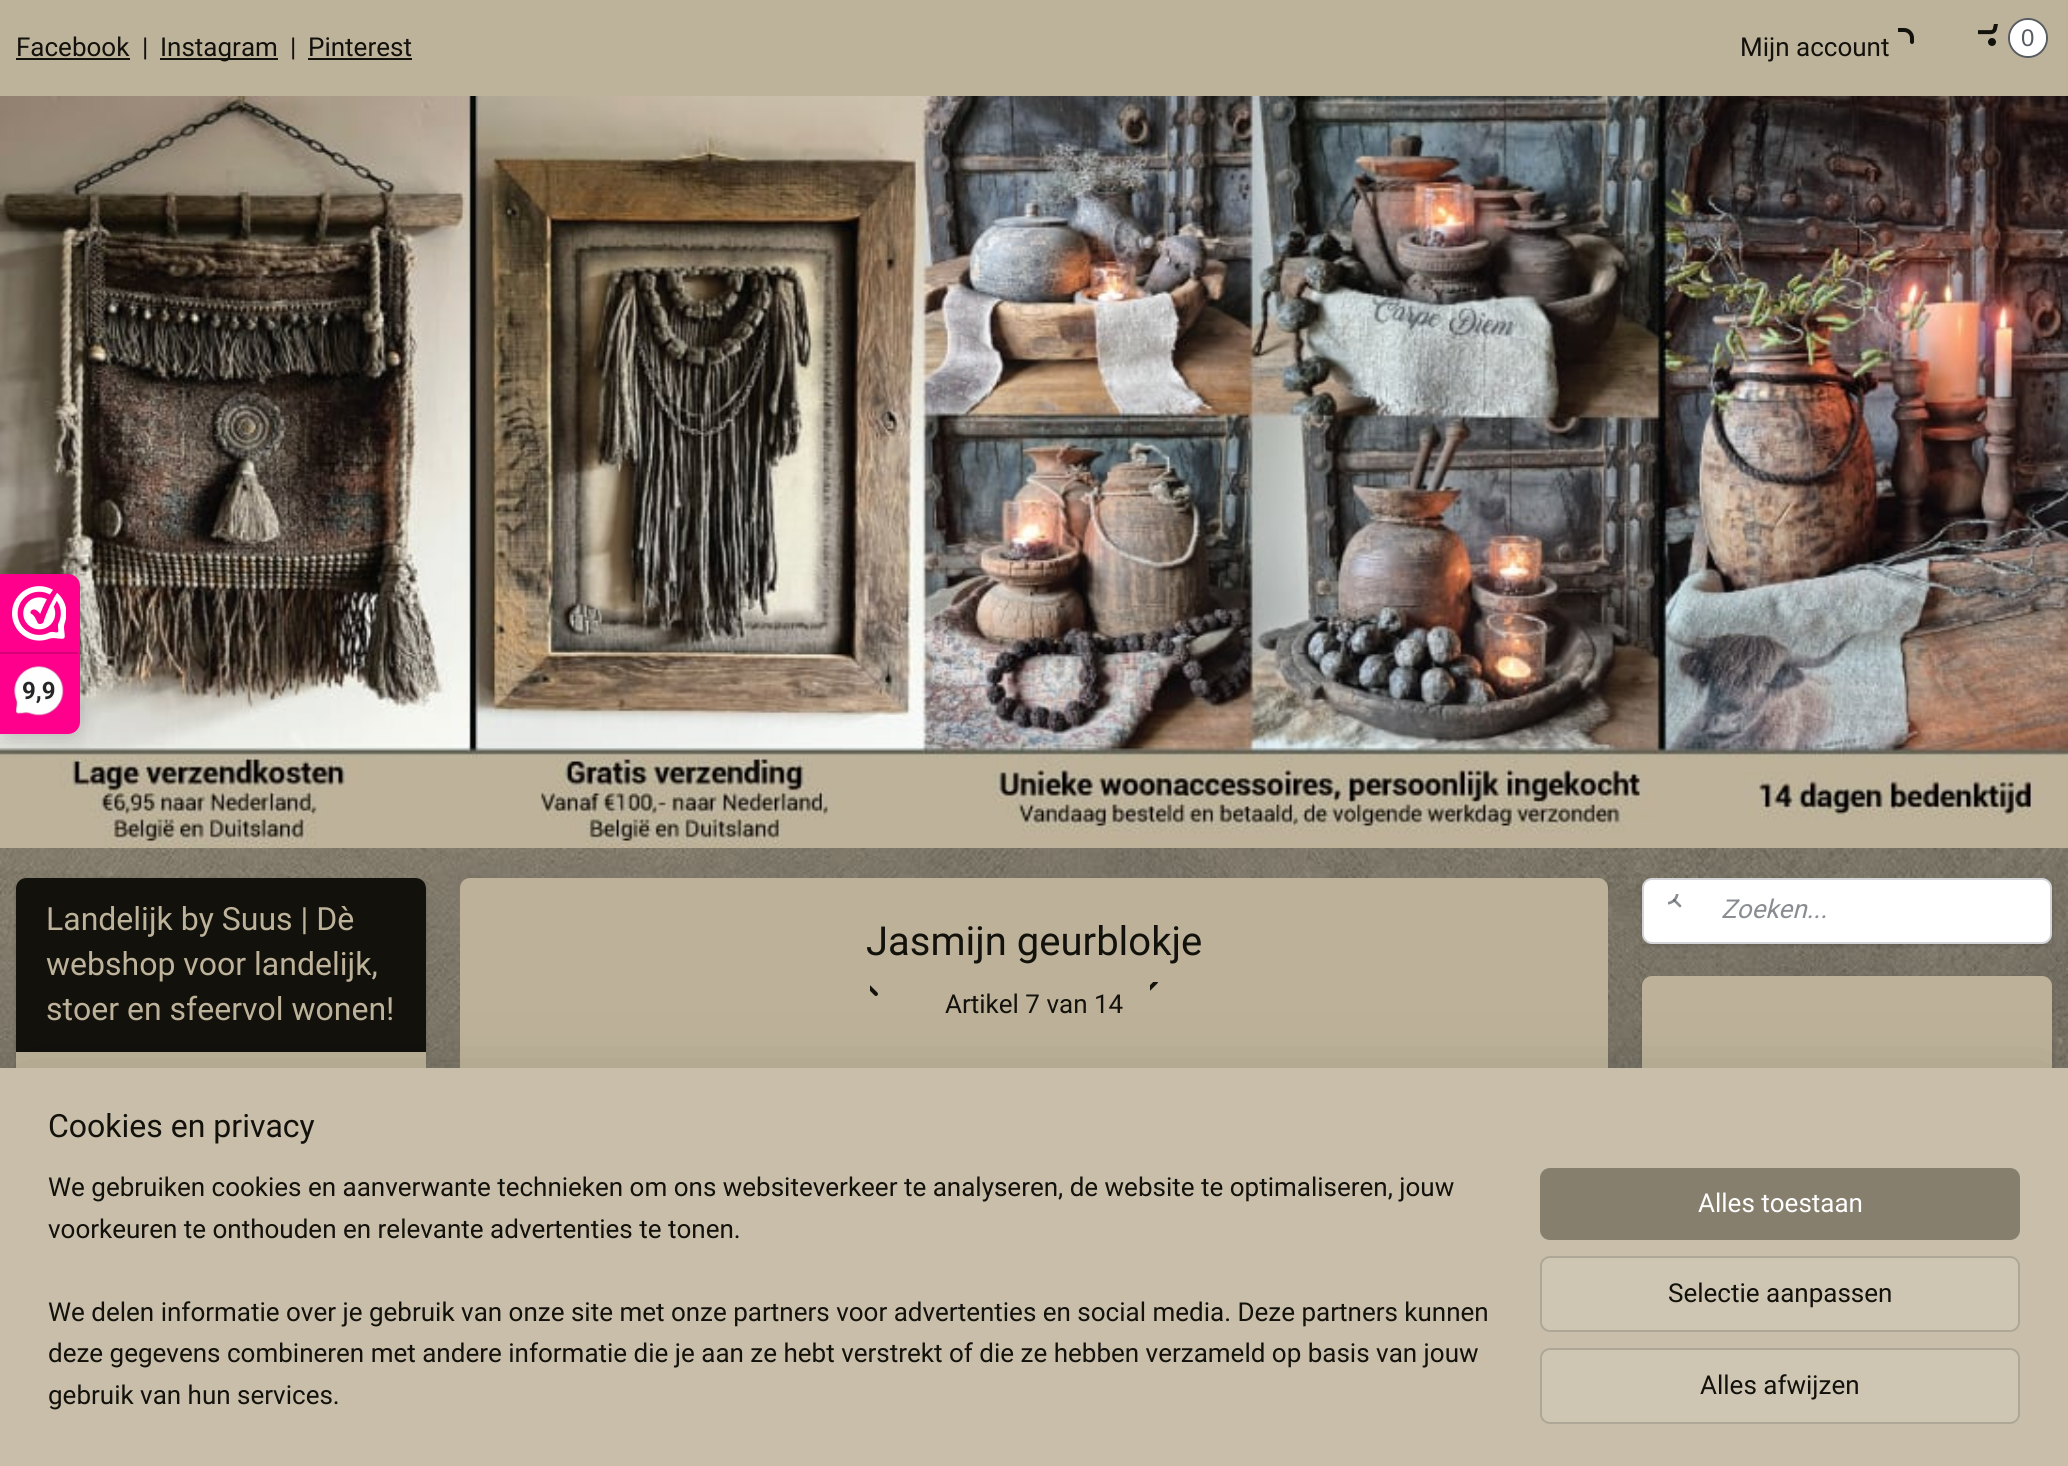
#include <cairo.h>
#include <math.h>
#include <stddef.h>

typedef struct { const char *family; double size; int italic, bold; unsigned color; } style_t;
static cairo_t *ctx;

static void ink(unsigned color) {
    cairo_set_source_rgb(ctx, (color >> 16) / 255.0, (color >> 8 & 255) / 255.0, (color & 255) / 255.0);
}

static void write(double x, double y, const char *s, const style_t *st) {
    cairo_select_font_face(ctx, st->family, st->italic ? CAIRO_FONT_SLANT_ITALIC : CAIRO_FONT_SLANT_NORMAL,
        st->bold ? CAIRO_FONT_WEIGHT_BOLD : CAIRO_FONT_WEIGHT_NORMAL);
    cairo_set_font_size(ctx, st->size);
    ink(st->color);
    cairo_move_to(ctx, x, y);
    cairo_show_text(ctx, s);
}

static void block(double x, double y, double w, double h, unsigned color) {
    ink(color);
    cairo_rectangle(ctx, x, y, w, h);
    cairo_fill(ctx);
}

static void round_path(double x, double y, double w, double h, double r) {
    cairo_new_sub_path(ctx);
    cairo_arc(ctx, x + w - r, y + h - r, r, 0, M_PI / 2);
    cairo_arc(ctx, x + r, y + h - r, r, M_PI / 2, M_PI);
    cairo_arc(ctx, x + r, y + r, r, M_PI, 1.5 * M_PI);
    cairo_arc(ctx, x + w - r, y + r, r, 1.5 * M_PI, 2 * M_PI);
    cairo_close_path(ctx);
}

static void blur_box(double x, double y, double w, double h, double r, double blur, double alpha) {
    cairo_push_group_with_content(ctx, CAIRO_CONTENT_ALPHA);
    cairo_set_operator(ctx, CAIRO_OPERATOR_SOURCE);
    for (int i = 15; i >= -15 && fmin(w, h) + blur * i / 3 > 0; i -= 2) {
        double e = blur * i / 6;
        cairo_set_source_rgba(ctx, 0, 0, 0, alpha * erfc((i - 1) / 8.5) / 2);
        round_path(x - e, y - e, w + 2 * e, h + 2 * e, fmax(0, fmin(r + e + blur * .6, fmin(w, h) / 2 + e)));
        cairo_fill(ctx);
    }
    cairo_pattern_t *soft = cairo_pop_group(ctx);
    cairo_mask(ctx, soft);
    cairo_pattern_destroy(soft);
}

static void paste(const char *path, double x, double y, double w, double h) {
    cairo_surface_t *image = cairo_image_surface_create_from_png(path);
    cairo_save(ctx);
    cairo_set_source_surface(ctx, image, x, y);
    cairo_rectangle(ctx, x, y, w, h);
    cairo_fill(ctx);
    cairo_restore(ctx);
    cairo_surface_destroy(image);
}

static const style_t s1 = {"Roboto", 26, 0, 0, 0x13110c};
static const style_t s2 = {"Liberation Sans", 24, 0, 0, 0x575b62};
static const style_t s3 = {"Roboto", 32, 0, 0, 0xbdb29a};
static const style_t s4 = {"Roboto", 40, 0, 0, 0x13110c};
static const style_t s5 = {"Roboto", 26, 1, 0, 0x898c91};
static const style_t s6 = {"Roboto", 24, 0, 1, 0x272626};
static const style_t s7 = {"Roboto", 32, 0, 0, 0x13110c};
static const style_t s8 = {"Roboto", 26, 0, 0, 0xffffff};

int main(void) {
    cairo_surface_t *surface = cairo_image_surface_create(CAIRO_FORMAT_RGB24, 2068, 1466);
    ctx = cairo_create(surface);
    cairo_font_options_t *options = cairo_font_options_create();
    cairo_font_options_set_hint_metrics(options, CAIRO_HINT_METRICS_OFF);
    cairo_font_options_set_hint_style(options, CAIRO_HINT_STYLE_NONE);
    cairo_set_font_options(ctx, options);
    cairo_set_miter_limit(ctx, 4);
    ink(0xffffff);
    cairo_paint(ctx);
    block(0, 0, 2068, 96, 0xbdb29a);
    write(16, 56, "Facebook", &s1);
    block(16, 58, 114, 2, 0x13110c);
    write(142, 56, "|", &s1);
    block(160, 58, 118, 2, 0x13110c);
    write(160, 56, "Instagram", &s1);
    write(290, 56, "|", &s1);
    write(308, 56, "Pinterest", &s1);
    block(308, 58, 104, 2, 0x13110c);
    write(1740, 56, "Mijn account", &s1);
    paste("pic1.png", 1898, 28, 16, 16);
    paste("pic2.png", 1978, 24, 20, 22);
    cairo_arc(ctx, 2028, 38, 19, 0, 2 * M_PI);
    ink(0x575b62);
    cairo_stroke(ctx);
    ink(0xffffff);
    cairo_arc(ctx, 2028, 38, 18, 0, 2 * M_PI);
    cairo_fill(ctx);
    write(2021, 46, "0", &s2);
    paste("pic3.png", 0, 96, 2068, 752);
    paste("pic4.png", 0, 848, 2068, 220);
    ink(0x000000);
    blur_box(16, 880, 410, 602, 10, 2, 0.15);
    ink(0xbdb299);
    round_path(16, 878, 410, 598, 10);
    cairo_fill(ctx);
    ink(0x13110c);
    cairo_new_path(ctx);
    cairo_move_to(ctx, 26, 878);
    cairo_line_to(ctx, 416, 878);
    cairo_curve_to(ctx, 421.5, 878, 426, 882.5, 426, 888);
    cairo_line_to(ctx, 426, 1052);
    cairo_line_to(ctx, 16, 1052);
    cairo_line_to(ctx, 16, 888);
    cairo_curve_to(ctx, 16, 882.5, 20.5, 878, 26, 878);
    cairo_close_path(ctx);
    cairo_fill(ctx);
    write(46, 930, "Landelijk by Suus | Dè", &s3);
    write(46, 975, "webshop voor landelijk,", &s3);
    write(46, 1020, "stoer en sfeervol wonen!", &s3);
    ink(0xbdb299);
    round_path(460, 878, 1148, 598, 10);
    cairo_fill(ctx);
    write(866, 955, "Jasmijn geurblokje", &s4);
    paste("pic5.png", 870, 985, 8, 11);
    paste("pic6.png", 1150, 982, 8, 9);
    write(945, 1013, "Artikel 7 van 14", &s1);
    cairo_save(ctx);
    cairo_set_fill_rule(ctx, CAIRO_FILL_RULE_EVEN_ODD);
    cairo_new_path(ctx);
    cairo_move_to(ctx, 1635, 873);
    cairo_line_to(ctx, 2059, 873);
    cairo_line_to(ctx, 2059, 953);
    cairo_line_to(ctx, 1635, 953);
    cairo_close_path(ctx);
    cairo_move_to(ctx, 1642, 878);
    cairo_line_to(ctx, 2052, 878);
    cairo_line_to(ctx, 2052, 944);
    cairo_line_to(ctx, 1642, 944);
    cairo_close_path(ctx);
    cairo_clip(ctx);
    ink(0x000000);
    blur_box(1642, 880, 410, 66, 0, 2, 0.15);
    cairo_restore(ctx);
    ink(0xffffff);
    round_path(1643, 879, 408, 64, 9);
    cairo_fill_preserve(ctx);
    ink(0xd3d5d9);
    cairo_stroke(ctx);
    paste("pic7.png", 1668, 894, 14, 14);
    write(1721, 918, "Zoeken...", &s5);
    ink(0x000000);
    blur_box(1642, 978, 410, 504, 10, 2, 0.15);
    ink(0xbdb299);
    round_path(1642, 976, 410, 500, 10);
    cairo_fill(ctx);
    ink(0x000000);
    blur_box(0, 578, 80, 160, 12, 10, 0.15);
    ink(0xfe008c);
    cairo_new_path(ctx);
    cairo_move_to(ctx, 0, 574);
    cairo_line_to(ctx, 68, 574);
    cairo_curve_to(ctx, 74.5, 574, 80, 579.5, 80, 586);
    cairo_line_to(ctx, 80, 722);
    cairo_curve_to(ctx, 80, 728.5, 74.5, 734, 68, 734);
    cairo_line_to(ctx, 0, 734);
    cairo_close_path(ctx);
    cairo_fill(ctx);
    paste("pic8.png", 12, 586, 54, 55);
    block(0, 652, 78, 2, 0xd80077);
    paste("pic9.png", 14, 666, 50, 50);
    write(22, 699, "9,9", &s6);
    ink(0x000000);
    blur_box(20, 1088, 2028, 358, 0, 36, 0.2);
    block(0, 1068, 2068, 398, 0xc8bea9);
    write(48, 1137, "Cookies en privacy", &s7);
    write(48, 1196, "We gebruiken cookies en aanverwante technieken om ons websiteverkeer te analyseren, de website te optimaliseren, jouw", &s1);
    write(48, 1238, "voorkeuren te onthouden en relevante advertenties te tonen.", &s1);
    write(48, 1321, "We delen informatie over je gebruik van onze site met onze partners voor advertenties en social media. Deze partners kunnen", &s1);
    write(48, 1362, "deze gegevens combineren met andere informatie die je aan ze hebt verstrekt of die ze hebben verzameld op basis van jouw", &s1);
    write(48, 1404, "gebruik van hun services.", &s1);
    ink(0x877f6e);
    round_path(1540, 1168, 480, 72, 10);
    cairo_fill(ctx);
    write(1698, 1212, "Alles toestaan", &s8);
    ink(0xcec5b2);
    round_path(1540, 1256, 480, 76, 10);
    cairo_fill(ctx);
    round_path(1541, 1257, 478, 74, 9);
    cairo_set_source_rgba(ctx, 0, 0, 0, 0.16);
    cairo_stroke(ctx);
    write(1668, 1302, "Selectie aanpassen", &s1);
    ink(0xcec5b2);
    round_path(1540, 1348, 480, 76, 10);
    cairo_fill(ctx);
    round_path(1541, 1349, 478, 74, 9);
    cairo_set_source_rgba(ctx, 0, 0, 0, 0.16);
    cairo_stroke(ctx);
    write(1700, 1394, "Alles afwijzen", &s1);
    cairo_surface_write_to_png(surface, "screenshot.png");
    cairo_font_options_destroy(options);
    cairo_destroy(ctx);
    cairo_surface_destroy(surface);
    return 0;
}
